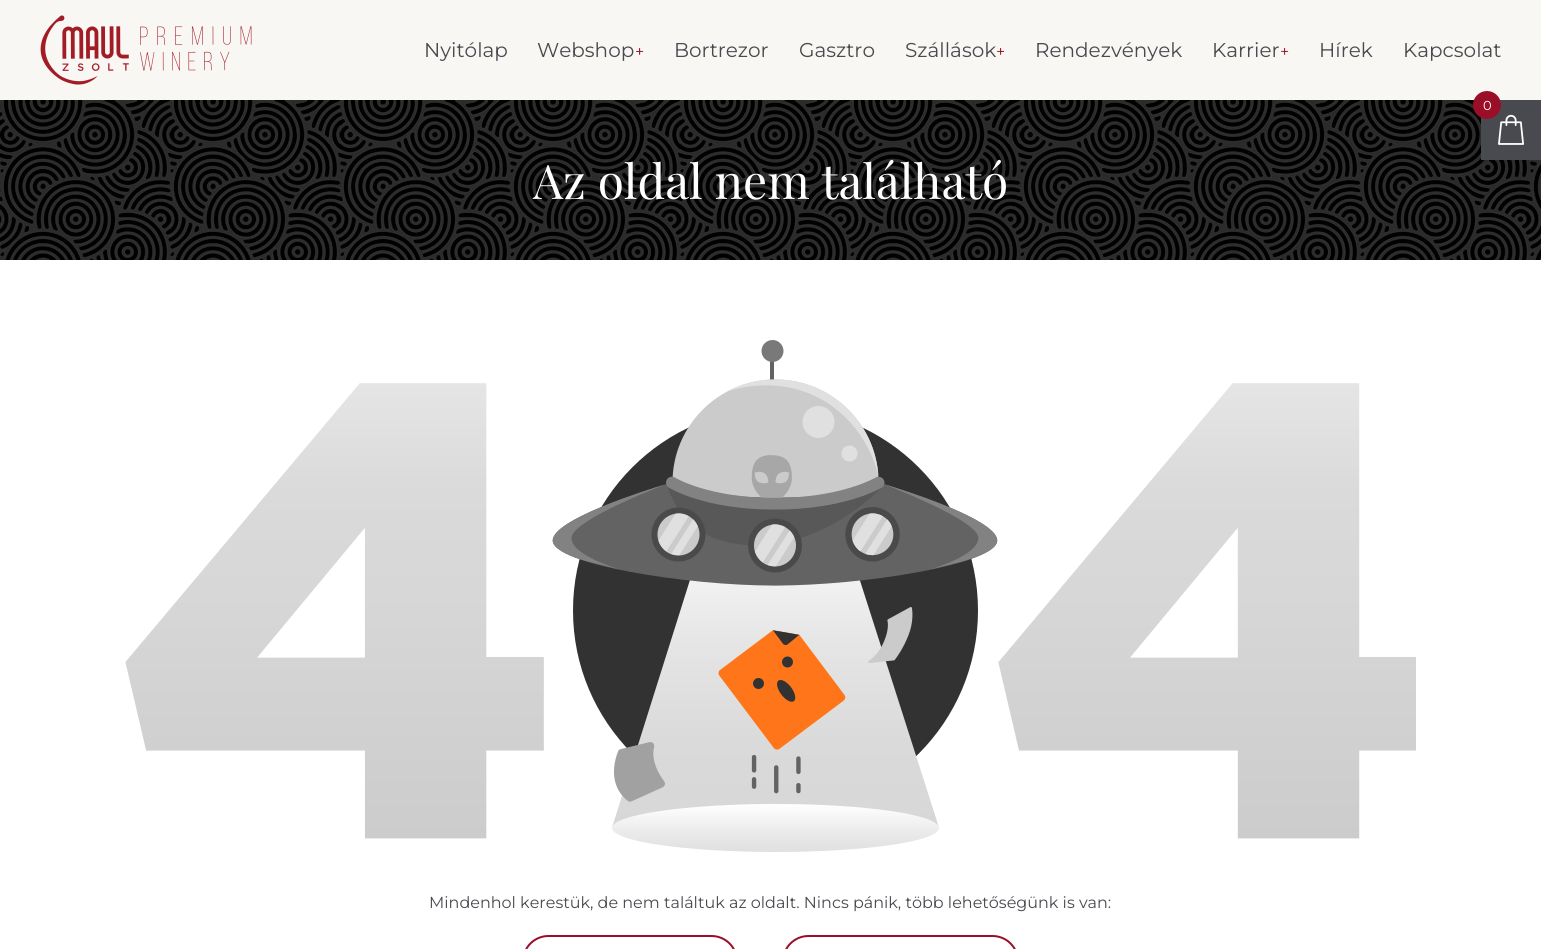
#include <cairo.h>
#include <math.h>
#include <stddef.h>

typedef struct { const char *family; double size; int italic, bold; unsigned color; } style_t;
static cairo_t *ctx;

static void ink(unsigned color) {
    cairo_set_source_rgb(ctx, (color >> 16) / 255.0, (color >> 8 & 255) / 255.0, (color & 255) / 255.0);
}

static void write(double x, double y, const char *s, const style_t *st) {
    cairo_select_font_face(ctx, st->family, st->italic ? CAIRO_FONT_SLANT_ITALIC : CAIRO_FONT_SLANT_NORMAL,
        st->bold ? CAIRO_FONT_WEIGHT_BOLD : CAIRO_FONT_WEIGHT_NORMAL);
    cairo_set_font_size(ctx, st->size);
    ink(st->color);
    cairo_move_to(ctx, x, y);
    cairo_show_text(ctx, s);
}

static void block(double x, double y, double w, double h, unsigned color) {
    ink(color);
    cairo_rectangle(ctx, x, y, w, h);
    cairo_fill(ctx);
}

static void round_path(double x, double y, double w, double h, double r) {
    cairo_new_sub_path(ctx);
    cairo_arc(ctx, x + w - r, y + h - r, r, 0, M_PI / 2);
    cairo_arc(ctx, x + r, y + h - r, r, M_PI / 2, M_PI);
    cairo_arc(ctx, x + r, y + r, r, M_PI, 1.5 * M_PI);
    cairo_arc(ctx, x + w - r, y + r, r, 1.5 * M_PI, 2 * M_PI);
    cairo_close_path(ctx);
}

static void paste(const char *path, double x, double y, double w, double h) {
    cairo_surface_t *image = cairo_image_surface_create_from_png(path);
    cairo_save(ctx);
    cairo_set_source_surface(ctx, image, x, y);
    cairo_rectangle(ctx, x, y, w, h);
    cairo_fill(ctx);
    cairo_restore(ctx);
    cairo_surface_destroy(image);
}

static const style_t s1 = {"Montserrat Thin", 20, 0, 0, 0x494a4f};
static const style_t s2 = {"Montserrat Thin", 16, 0, 0, 0x9b0e27};
static const style_t s3 = {"Playfair Display", 47.75, 0, 0, 0xffffff};
static const style_t s4 = {"Montserrat Thin", 16, 0, 0, 0x494a4f};
static const style_t s5 = {"Montserrat Thin", 13, 0, 0, 0xffffff};

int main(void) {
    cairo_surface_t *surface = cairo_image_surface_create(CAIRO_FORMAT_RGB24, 1541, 949);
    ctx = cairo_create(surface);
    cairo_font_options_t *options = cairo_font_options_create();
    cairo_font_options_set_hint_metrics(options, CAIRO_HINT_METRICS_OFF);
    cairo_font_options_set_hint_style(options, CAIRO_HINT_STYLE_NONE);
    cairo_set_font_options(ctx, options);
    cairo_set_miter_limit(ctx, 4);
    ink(0xffffff);
    cairo_paint(ctx);
    block(0, 0, 1541, 100, 0xf9f7f3);
    paste("pic1.png", 40, 15, 212, 70);
    write(424, 57, "Nyitólap", &s1);
    write(537, 57, "Webshop", &s1);
    write(635, 57, "+", &s2);
    write(674, 57, "Bortrezor", &s1);
    write(799, 57, "Gasztro", &s1);
    write(905, 57, "Szállások", &s1);
    write(996, 57, "+", &s2);
    write(1035, 57, "Rendezvények", &s1);
    write(1212, 57, "Karrier", &s1);
    write(1280, 57, "+", &s2);
    write(1319, 57, "Hírek", &s1);
    write(1403, 57, "Kapcsolat", &s1);
    paste("pic2.png", 0, 100, 1541, 160);
    write(533, 199, "Az oldal nem található", &s3);
    paste("pic3.png", 125, 340, 1291, 512);
    write(429, 908, "Mindenhol kerestük, de nem találtuk az oldalt. Nincs pánik, több lehetőségünk is van:", &s4);
    round_path(523, 936, 214, 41, 25.5);
    ink(0x9b0e27);
    cairo_stroke(ctx);
    round_path(783, 936, 235, 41, 25.5);
    cairo_stroke(ctx);
    block(1481, 100, 60, 60, 0x494a4f);
    paste("pic4.png", 1498, 114, 26, 31);
    ink(0x9b0e27);
    cairo_arc(ctx, 1487, 105, 14, 0, 2 * M_PI);
    cairo_fill(ctx);
    write(1483, 110, "0", &s5);
    cairo_surface_write_to_png(surface, "screenshot.png");
    cairo_font_options_destroy(options);
    cairo_destroy(ctx);
    cairo_surface_destroy(surface);
    return 0;
}
